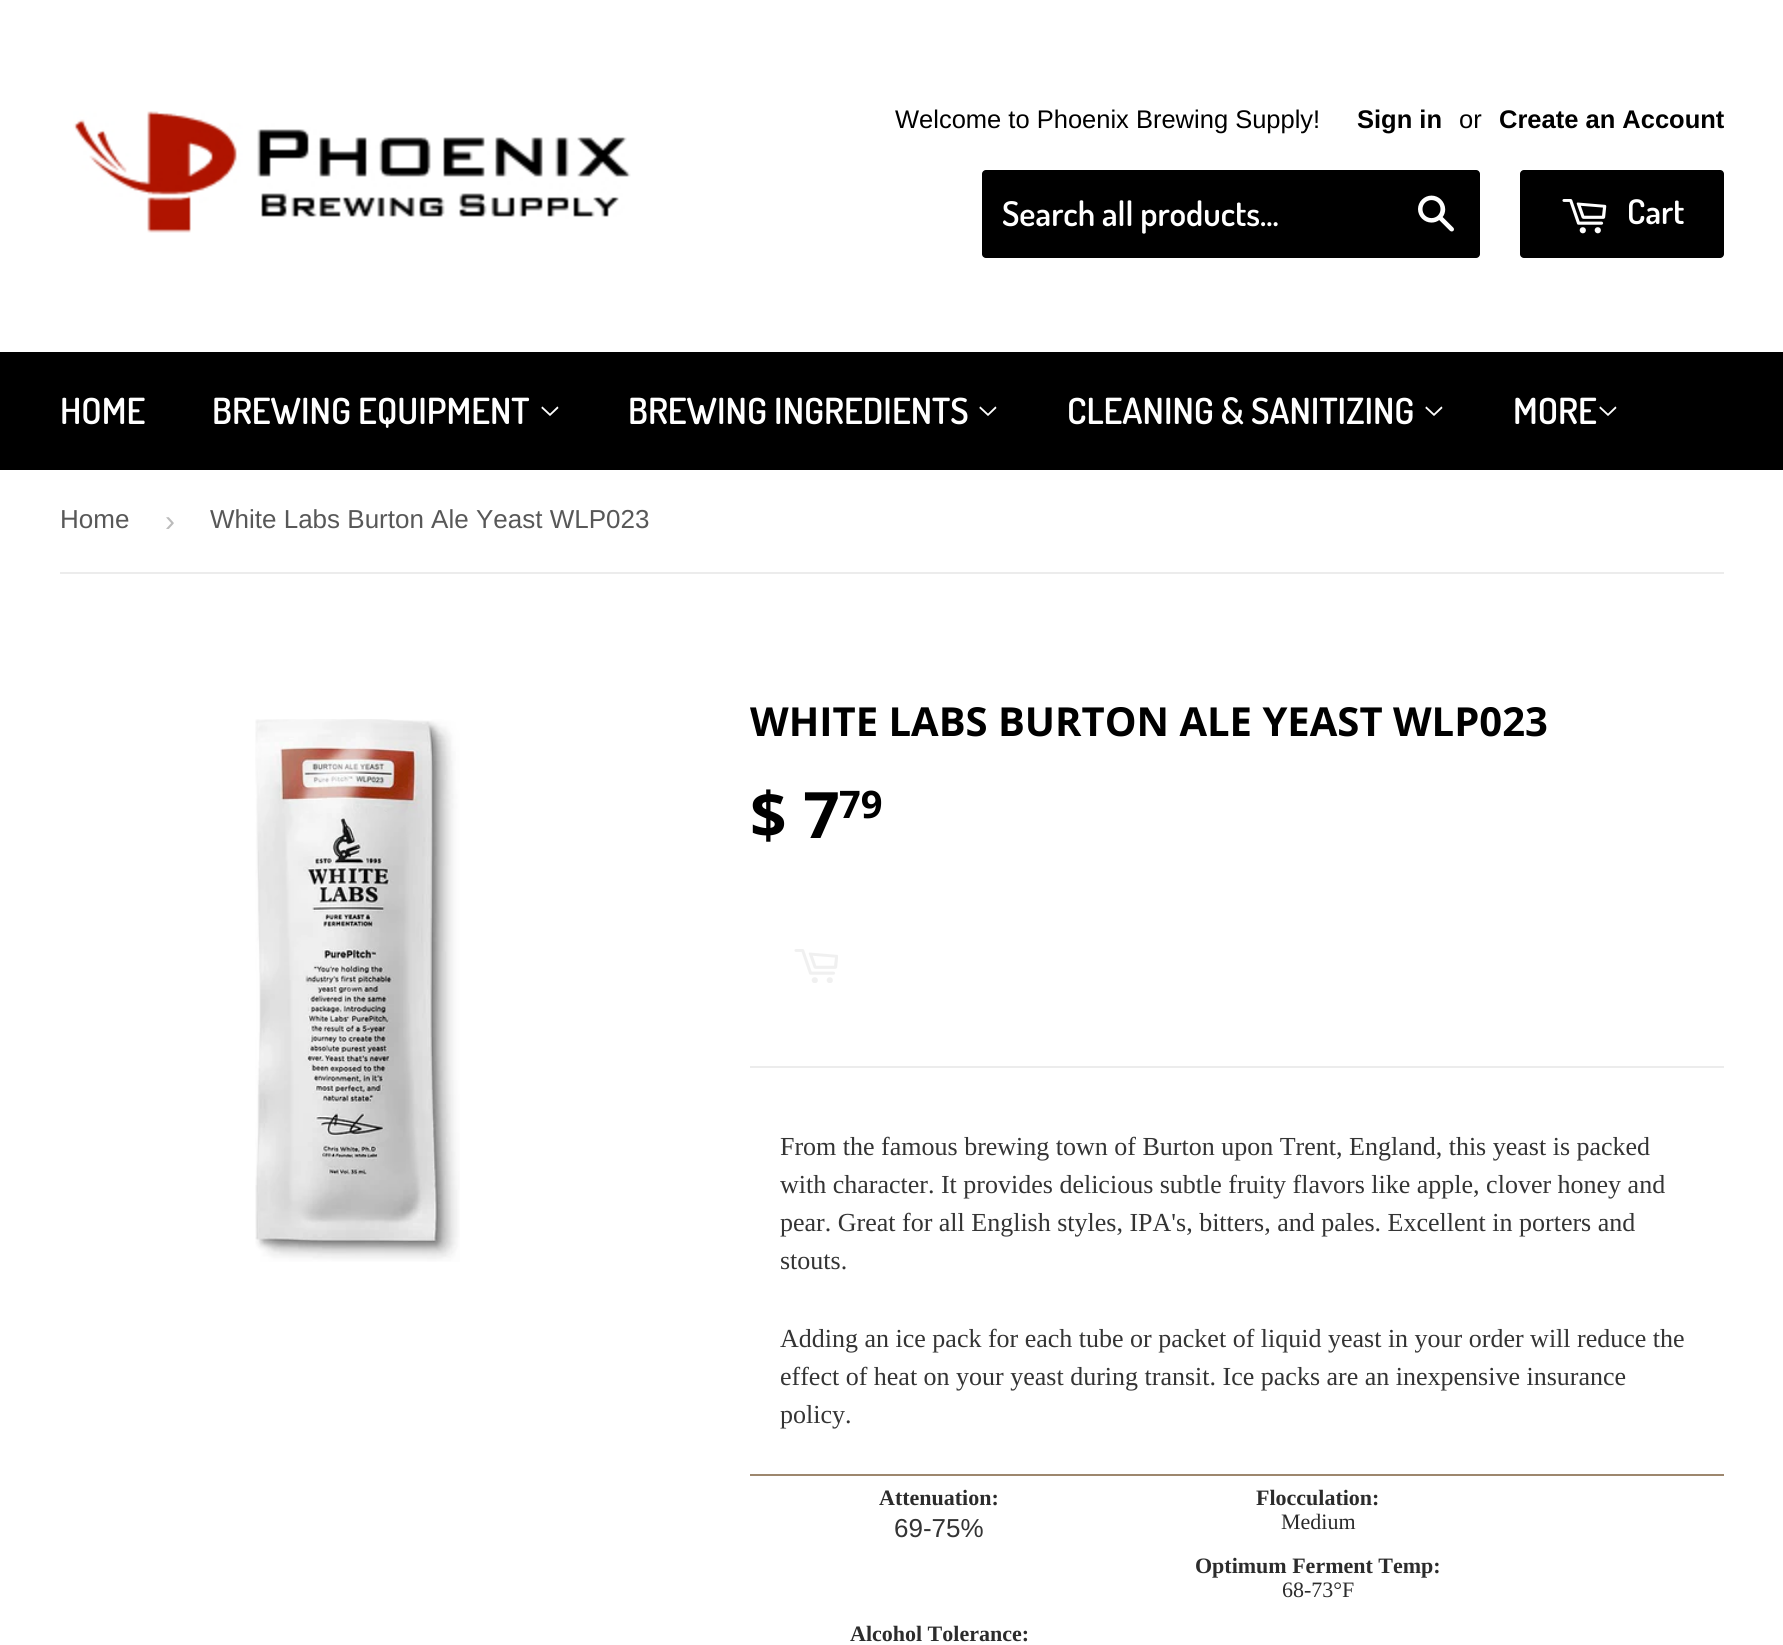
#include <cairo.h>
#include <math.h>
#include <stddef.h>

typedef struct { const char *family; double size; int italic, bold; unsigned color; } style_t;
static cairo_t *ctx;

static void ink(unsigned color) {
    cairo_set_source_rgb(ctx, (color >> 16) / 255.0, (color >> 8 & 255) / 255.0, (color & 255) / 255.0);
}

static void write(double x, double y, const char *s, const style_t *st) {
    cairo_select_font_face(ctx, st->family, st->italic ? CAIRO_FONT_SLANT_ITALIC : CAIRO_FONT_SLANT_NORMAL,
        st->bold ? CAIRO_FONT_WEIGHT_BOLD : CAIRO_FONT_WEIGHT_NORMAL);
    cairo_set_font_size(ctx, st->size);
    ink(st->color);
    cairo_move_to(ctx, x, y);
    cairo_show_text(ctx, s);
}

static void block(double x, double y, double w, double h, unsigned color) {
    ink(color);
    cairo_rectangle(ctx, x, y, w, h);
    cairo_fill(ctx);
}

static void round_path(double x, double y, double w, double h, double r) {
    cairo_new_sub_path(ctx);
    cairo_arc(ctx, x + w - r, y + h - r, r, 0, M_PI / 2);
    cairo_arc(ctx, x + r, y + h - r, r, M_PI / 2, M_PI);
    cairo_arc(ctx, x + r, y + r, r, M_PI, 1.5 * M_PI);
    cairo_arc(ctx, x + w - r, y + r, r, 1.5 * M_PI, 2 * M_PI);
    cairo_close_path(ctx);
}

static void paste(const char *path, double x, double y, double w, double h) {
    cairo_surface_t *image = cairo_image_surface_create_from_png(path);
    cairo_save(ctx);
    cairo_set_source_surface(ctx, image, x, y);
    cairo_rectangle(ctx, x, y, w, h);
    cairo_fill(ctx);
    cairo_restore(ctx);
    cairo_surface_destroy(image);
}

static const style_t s1 = {"Liberation Sans", 25.5, 0, 0, 0x000000};
static const style_t s2 = {"Liberation Sans", 25.5, 0, 1, 0x000000};
static const style_t s3 = {"Dosis SemiBold", 34, 0, 0, 0xffffff};
static const style_t s4 = {"Dosis SemiBold", 36, 0, 0, 0xffffff};
static const style_t s5 = {"Liberation Sans", 26, 0, 0, 0x585858};
static const style_t s6 = {"Liberation Sans", 30, 0, 0, 0xbbbbbb};
static const style_t s7 = {"Open Sans", 40, 0, 1, 0x000000};
static const style_t s8 = {"Open Sans", 64, 0, 1, 0x000000};
static const style_t s9 = {"Open Sans", 38, 0, 1, 0x000000};
static const style_t s10 = {"Liberation Serif", 26, 0, 0, 0x343434};
static const style_t s11 = {"Liberation Serif", 22, 0, 1, 0x2c2c2c};
static const style_t s12 = {"Liberation Sans", 26, 0, 0, 0x343434};
static const style_t s13 = {"Liberation Serif", 22, 0, 0, 0x2c2c2c};

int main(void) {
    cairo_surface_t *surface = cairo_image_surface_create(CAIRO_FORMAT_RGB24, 1783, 1645);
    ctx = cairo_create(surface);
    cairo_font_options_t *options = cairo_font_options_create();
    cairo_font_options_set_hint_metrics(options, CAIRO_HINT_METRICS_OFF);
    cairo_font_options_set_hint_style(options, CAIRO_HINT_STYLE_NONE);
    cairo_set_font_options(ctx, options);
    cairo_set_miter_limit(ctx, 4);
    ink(0xffffff);
    cairo_paint(ctx);
    paste("pic1.png", 73, 111, 558, 122);
    write(895, 128, "Welcome to Phoenix Brewing Supply!", &s1);
    write(1357, 128, "Sign in", &s2);
    write(1459, 128, "or", &s1);
    write(1499, 128, "Create an Account", &s2);
    round_path(982, 170, 498, 88, 4);
    cairo_fill(ctx);
    write(1002, 226, "Search all products...", &s3);
    paste("pic2.png", 1418, 195, 36, 37);
    ink(0x000000);
    round_path(1520, 170, 204, 88, 4);
    cairo_fill(ctx);
    paste("pic3.png", 1562, 199, 45, 35);
    write(1627, 224, "Cart", &s3);
    block(0, 352, 1783, 118, 0x000000);
    write(60, 424, "HOME", &s4);
    write(212, 424, "BREWING EQUIPMENT", &s4);
    paste("pic4.png", 541, 406, 18, 10);
    write(628, 424, "BREWING INGREDIENTS", &s4);
    paste("pic4.png", 979, 406, 18, 10);
    write(1067, 424, "CLEANING & SANITIZING", &s4);
    paste("pic4.png", 1425, 406, 18, 10);
    write(1513, 424, "MORE", &s4);
    paste("pic4.png", 1599, 406, 18, 10);
    block(60, 572, 1664, 2, 0xececec);
    write(60, 528, "Home", &s5);
    write(165, 531, "›", &s6);
    write(210, 528, "White Labs Burton Ale Yeast WLP023", &s5);
    paste("pic5.png", 255, 719, 205, 543);
    write(750, 736, "WHITE LABS BURTON ALE YEAST WLP023", &s7);
    write(750, 838, "$ 7", &s8);
    write(839, 818, "79", &s9);
    paste("pic6.png", 794, 949, 44, 34);
    block(750, 1066, 974, 2, 0xececec);
    write(780, 1155, "From the famous brewing town of Burton upon Trent, England, this yeast is packed", &s10);
    write(780, 1193, "with character. It provides delicious subtle fruity flavors like apple, clover honey and", &s10);
    write(780, 1231, "pear. Great for all English styles, IPA's, bitters, and pales. Excellent in porters and", &s10);
    write(780, 1269, "stouts.", &s10);
    write(780, 1347, "Adding an ice pack for each tube or packet of liquid yeast in your order will reduce the", &s10);
    write(780, 1385, "effect of heat on your yeast during transit. Ice packs are an inexpensive insurance", &s10);
    write(780, 1423, "policy.", &s10);
    block(750, 1474, 974, 2, 0x9d876e);
    write(879, 1505, "Attenuation:", &s11);
    write(894, 1537, "69-75%", &s12);
    write(1256, 1505, "Flocculation:", &s11);
    write(1281, 1529, "Medium", &s13);
    write(1195, 1573, "Optimum Ferment Temp:", &s11);
    write(1282, 1597, "68-73°F", &s13);
    write(850, 1641, "Alcohol Tolerance:", &s11);
    cairo_surface_write_to_png(surface, "screenshot.png");
    cairo_font_options_destroy(options);
    cairo_destroy(ctx);
    cairo_surface_destroy(surface);
    return 0;
}
